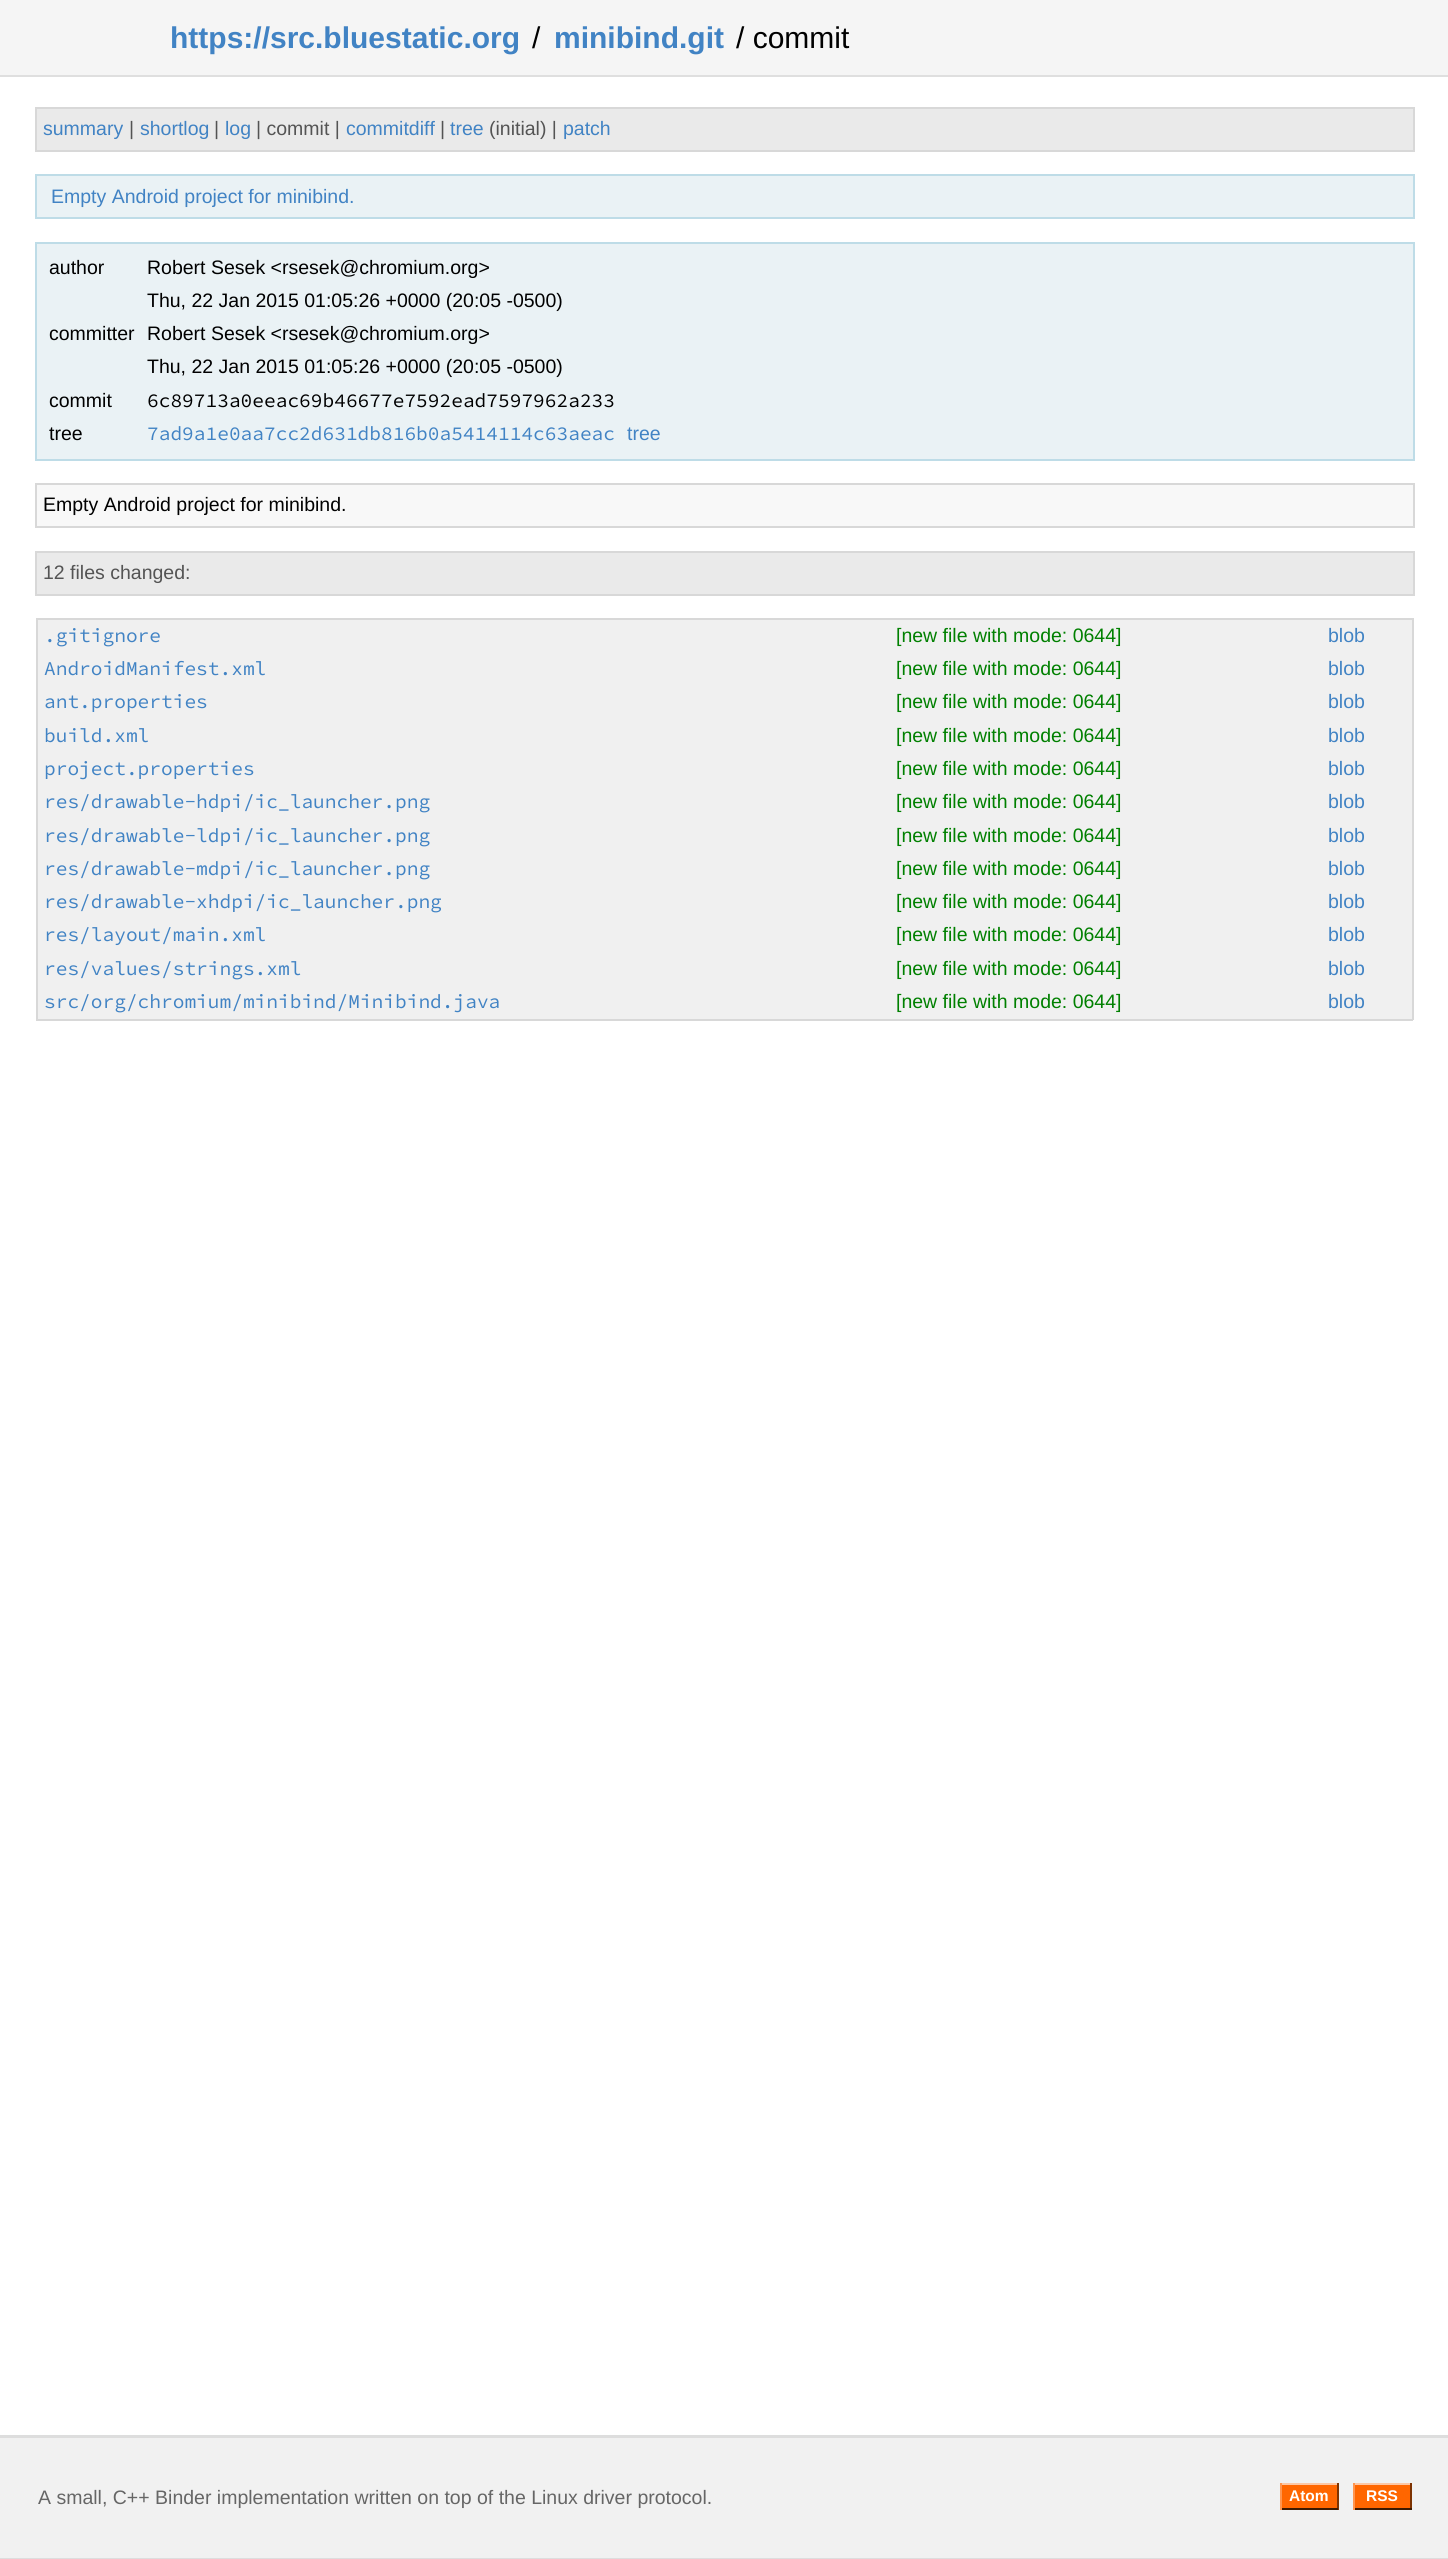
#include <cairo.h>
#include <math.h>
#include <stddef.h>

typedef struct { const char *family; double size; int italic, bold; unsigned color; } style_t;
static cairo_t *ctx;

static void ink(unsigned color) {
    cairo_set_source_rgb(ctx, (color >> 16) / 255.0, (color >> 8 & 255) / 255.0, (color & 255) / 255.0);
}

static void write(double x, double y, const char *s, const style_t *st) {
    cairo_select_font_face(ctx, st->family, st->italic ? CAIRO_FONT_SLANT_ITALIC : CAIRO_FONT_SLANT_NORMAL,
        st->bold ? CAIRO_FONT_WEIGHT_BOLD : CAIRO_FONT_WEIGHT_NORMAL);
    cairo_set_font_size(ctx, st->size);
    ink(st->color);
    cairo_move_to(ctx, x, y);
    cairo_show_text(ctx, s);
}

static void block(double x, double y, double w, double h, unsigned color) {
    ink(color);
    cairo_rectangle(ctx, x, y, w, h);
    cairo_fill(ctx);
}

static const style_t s1 = {"Liberation Sans", 30, 0, 1, 0x4183c4};
static const style_t s2 = {"Liberation Sans", 30, 0, 0, 0x000000};
static const style_t s3 = {"Liberation Sans", 19.5, 0, 0, 0x4183c4};
static const style_t s4 = {"Liberation Sans", 19.5, 0, 0, 0x545454};
static const style_t s5 = {"Liberation Sans", 19.5, 0, 0, 0x000000};
static const style_t s6 = {"Source Code Pro", 19.5, 0, 0, 0x000000};
static const style_t s7 = {"Source Code Pro", 19.5, 0, 0, 0x4183c4};
static const style_t s8 = {"Liberation Sans", 19.5, 0, 0, 0x008000};
static const style_t s9 = {"Liberation Sans", 19.5, 0, 0, 0x666666};
static const style_t s10 = {"Liberation Sans", 15.5, 0, 1, 0xffffff};

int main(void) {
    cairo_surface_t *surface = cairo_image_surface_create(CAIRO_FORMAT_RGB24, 1448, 2559);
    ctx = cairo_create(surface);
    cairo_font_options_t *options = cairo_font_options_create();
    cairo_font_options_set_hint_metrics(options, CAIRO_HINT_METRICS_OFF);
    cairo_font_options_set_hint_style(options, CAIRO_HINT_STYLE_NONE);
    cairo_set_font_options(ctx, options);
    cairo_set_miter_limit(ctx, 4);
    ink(0xffffff);
    cairo_paint(ctx);
    block(0, 0, 1448, 75, 0xf5f5f5);
    block(0, 75, 1448, 2, 0xdfdfdf);
    write(170, 48, "https://src.bluestatic.org", &s1);
    write(532, 48, "/", &s2);
    write(554, 48, "minibind.git", &s1);
    write(736, 48, "/ commit", &s2);
    ink(0xeaeaea);
    cairo_rectangle(ctx, 36, 108, 1378, 43);
    cairo_fill_preserve(ctx);
    ink(0xd8d8d8);
    cairo_stroke(ctx);
    write(43, 135, "summary", &s3);
    write(129, 135, "|", &s4);
    write(140, 135, "shortlog", &s3);
    write(214, 135, "|", &s4);
    write(225, 135, "log", &s3);
    write(256, 135, "| commit |", &s4);
    write(346, 135, "commitdiff", &s3);
    write(440, 135, "|", &s4);
    write(450, 135, "tree", &s3);
    write(489, 135, "(initial) |", &s4);
    write(563, 135, "patch", &s3);
    ink(0xeaf2f5);
    cairo_rectangle(ctx, 36, 175, 1378, 43);
    cairo_fill_preserve(ctx);
    ink(0xbedce7);
    cairo_stroke(ctx);
    write(51, 203, "Empty Android project for minibind.", &s3);
    ink(0xeaf2f5);
    cairo_rectangle(ctx, 36, 243, 1378, 217);
    cairo_fill_preserve(ctx);
    ink(0xbedce7);
    cairo_stroke(ctx);
    write(49, 274, "author", &s5);
    write(147, 274, "Robert Sesek <rsesek@chromium.org>", &s5);
    write(147, 307, "Thu, 22 Jan 2015 01:05:26 +0000 (20:05 -0500)", &s5);
    write(49, 340, "committer", &s5);
    write(147, 340, "Robert Sesek <rsesek@chromium.org>", &s5);
    write(147, 373, "Thu, 22 Jan 2015 01:05:26 +0000 (20:05 -0500)", &s5);
    write(49, 407, "commit", &s5);
    write(147, 407, "6c89713a0eeac69b46677e7592ead7597962a233", &s6);
    write(49, 440, "tree", &s5);
    write(147, 440, "7ad9a1e0aa7cc2d631db816b0a5414114c63aeac", &s7);
    write(627, 440, "tree", &s3);
    ink(0xf8f8f8);
    cairo_rectangle(ctx, 36, 484, 1378, 43);
    cairo_fill_preserve(ctx);
    ink(0xd8d8d8);
    cairo_stroke(ctx);
    write(43, 511, "Empty Android project for minibind.", &s5);
    ink(0xeaeaea);
    cairo_rectangle(ctx, 36, 552, 1378, 43);
    cairo_fill_preserve(ctx);
    ink(0xd8d8d8);
    cairo_stroke(ctx);
    write(43, 579, "12 files changed:", &s4);
    block(38, 620, 1374, 399, 0xf0f0f0);
    block(36, 618, 1377, 2, 0xd8d8d8);
    block(1412, 618, 2, 402, 0xd8d8d8);
    block(36, 1019, 1377, 2, 0xd8d8d8);
    block(36, 618, 2, 402, 0xd8d8d8);
    write(44, 642, ".gitignore", &s7);
    write(896, 642, "[new file with mode: 0644]", &s8);
    write(1328, 642, "blob", &s3);
    write(44, 675, "AndroidManifest.xml", &s7);
    write(896, 675, "[new file with mode: 0644]", &s8);
    write(1328, 675, "blob", &s3);
    write(44, 708, "ant.properties", &s7);
    write(896, 708, "[new file with mode: 0644]", &s8);
    write(1328, 708, "blob", &s3);
    write(44, 742, "build.xml", &s7);
    write(896, 742, "[new file with mode: 0644]", &s8);
    write(1328, 742, "blob", &s3);
    write(44, 775, "project.properties", &s7);
    write(896, 775, "[new file with mode: 0644]", &s8);
    write(1328, 775, "blob", &s3);
    write(44, 808, "res/drawable-hdpi/ic_launcher.png", &s7);
    write(896, 808, "[new file with mode: 0644]", &s8);
    write(1328, 808, "blob", &s3);
    write(44, 842, "res/drawable-ldpi/ic_launcher.png", &s7);
    write(896, 842, "[new file with mode: 0644]", &s8);
    write(1328, 842, "blob", &s3);
    write(44, 875, "res/drawable-mdpi/ic_launcher.png", &s7);
    write(896, 875, "[new file with mode: 0644]", &s8);
    write(1328, 875, "blob", &s3);
    write(44, 908, "res/drawable-xhdpi/ic_launcher.png", &s7);
    write(896, 908, "[new file with mode: 0644]", &s8);
    write(1328, 908, "blob", &s3);
    write(44, 941, "res/layout/main.xml", &s7);
    write(896, 941, "[new file with mode: 0644]", &s8);
    write(1328, 941, "blob", &s3);
    write(44, 975, "res/values/strings.xml", &s7);
    write(896, 975, "[new file with mode: 0644]", &s8);
    write(1328, 975, "blob", &s3);
    write(44, 1008, "src/org/chromium/minibind/Minibind.java", &s7);
    write(896, 1008, "[new file with mode: 0644]", &s8);
    write(1328, 1008, "blob", &s3);
    block(0, 2438, 1448, 120, 0xf1f1f1);
    block(0, 2435, 1448, 3, 0xdddddd);
    block(0, 2558, 1448, 1, 0xdddddd);
    write(38, 2504, "A small, C++ Binder implementation written on top of the Linux driver protocol.", &s9);
    block(1282, 2485, 55, 23, 0xff6600);
    block(1280, 2483, 58, 2, 0xfcc7a5);
    block(1337, 2483, 2, 27, 0x7d3302);
    block(1280, 2508, 58, 2, 0x3e1a01);
    block(1280, 2483, 2, 27, 0xff954e);
    write(1289, 2501, "Atom", &s10);
    block(1355, 2485, 55, 23, 0xff6600);
    block(1353, 2483, 59, 2, 0xfcc7a5);
    block(1410, 2483, 2, 27, 0x7d3302);
    block(1353, 2508, 59, 2, 0x3e1a01);
    block(1353, 2483, 2, 27, 0xff954e);
    write(1366, 2501, "RSS", &s10);
    cairo_surface_write_to_png(surface, "screenshot.png");
    cairo_font_options_destroy(options);
    cairo_destroy(ctx);
    cairo_surface_destroy(surface);
    return 0;
}
